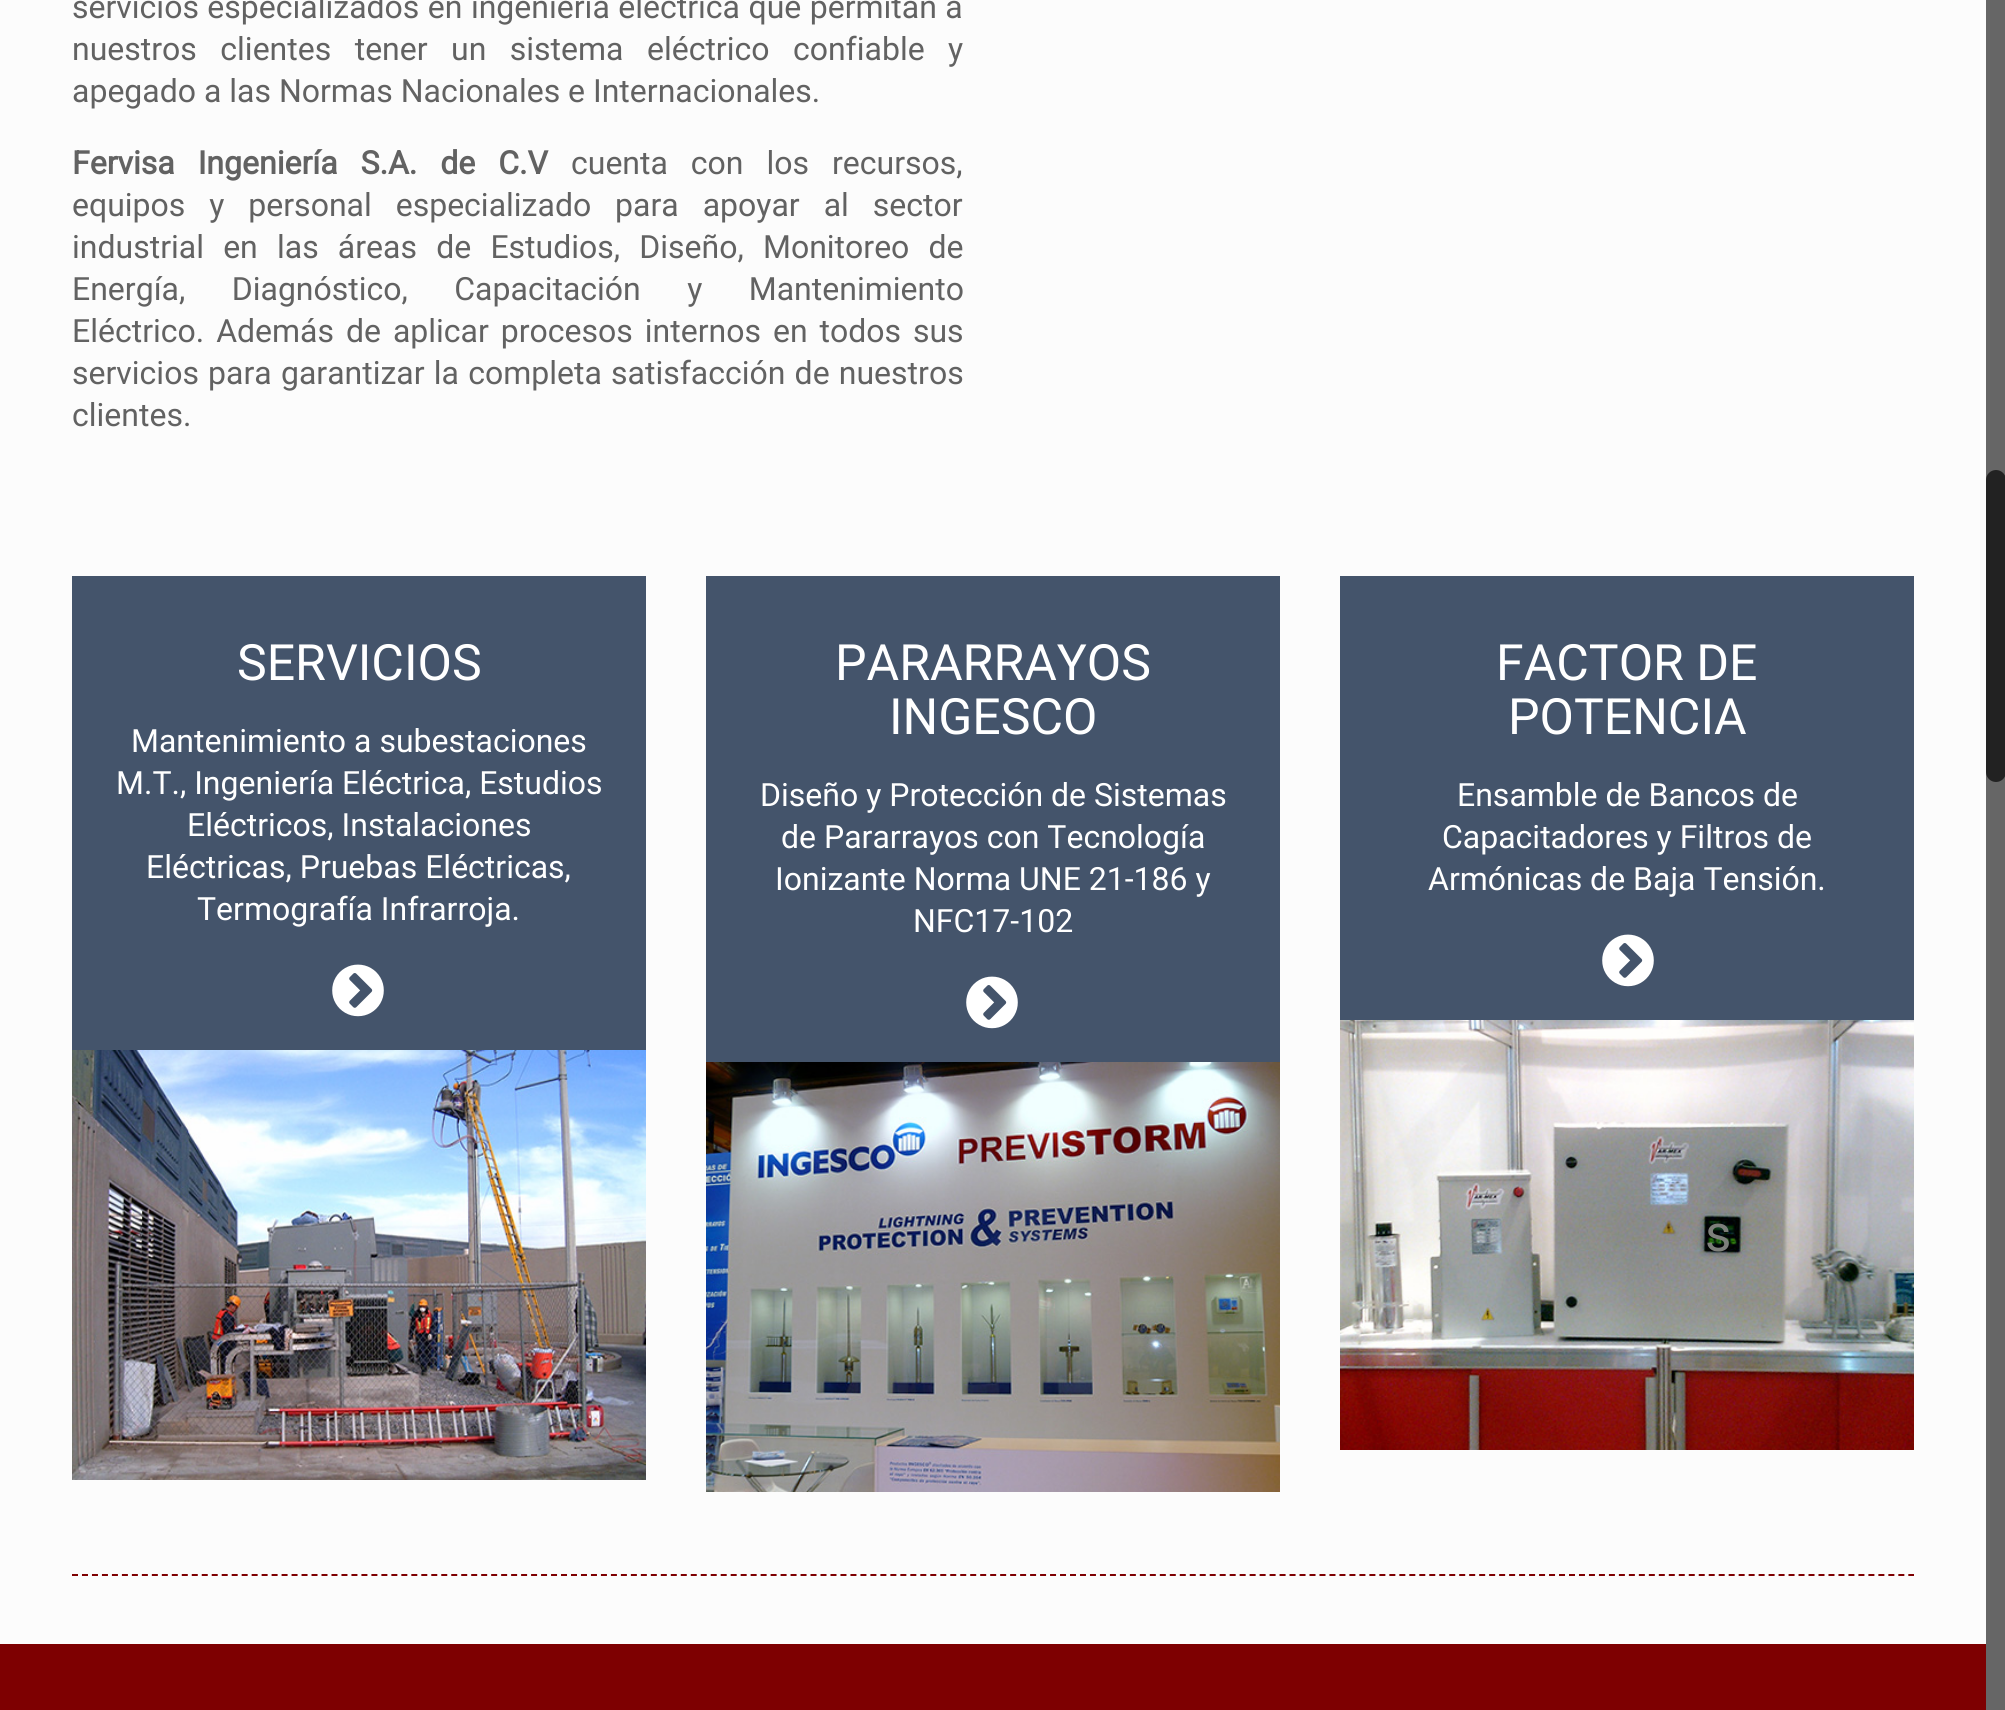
#include <cairo.h>
#include <math.h>
#include <stddef.h>

typedef struct { const char *family; double size; int italic, bold; unsigned color; } style_t;
static cairo_t *ctx;

static void ink(unsigned color) {
    cairo_set_source_rgb(ctx, (color >> 16) / 255.0, (color >> 8 & 255) / 255.0, (color & 255) / 255.0);
}

static void write(double x, double y, const char *s, const style_t *st) {
    cairo_select_font_face(ctx, st->family, st->italic ? CAIRO_FONT_SLANT_ITALIC : CAIRO_FONT_SLANT_NORMAL,
        st->bold ? CAIRO_FONT_WEIGHT_BOLD : CAIRO_FONT_WEIGHT_NORMAL);
    cairo_set_font_size(ctx, st->size);
    ink(st->color);
    cairo_move_to(ctx, x, y);
    cairo_show_text(ctx, s);
}

static void write_spaced(double x, double y, const char *s, double letter, double word) {
    cairo_move_to(ctx, x, y);
    while (*s) {
        char ch[5] = {0};
        int n = 0;
        do ch[n++] = *s++; while ((*s & 0xC0) == 0x80);
        cairo_show_text(ctx, ch);
        cairo_rel_move_to(ctx, letter + word * (*ch == ' '), 0);
    }
}

static void block(double x, double y, double w, double h, unsigned color) {
    ink(color);
    cairo_rectangle(ctx, x, y, w, h);
    cairo_fill(ctx);
}

static void round_path(double x, double y, double w, double h, double r) {
    cairo_new_sub_path(ctx);
    cairo_arc(ctx, x + w - r, y + h - r, r, 0, M_PI / 2);
    cairo_arc(ctx, x + r, y + h - r, r, M_PI / 2, M_PI);
    cairo_arc(ctx, x + r, y + r, r, M_PI, 1.5 * M_PI);
    cairo_arc(ctx, x + w - r, y + r, r, 1.5 * M_PI, 2 * M_PI);
    cairo_close_path(ctx);
}

static void paste(const char *path, double x, double y, double w, double h) {
    cairo_surface_t *image = cairo_image_surface_create_from_png(path);
    cairo_save(ctx);
    cairo_set_source_surface(ctx, image, x, y);
    cairo_rectangle(ctx, x, y, w, h);
    cairo_fill(ctx);
    cairo_restore(ctx);
    cairo_surface_destroy(image);
}

static const style_t s1 = {"Roboto", 32, 0, 0, 0x626262};
static const style_t s2 = {"Roboto", 50, 0, 0, 0xffffff};
static const style_t s3 = {"Roboto", 32, 0, 0, 0xffffff};
static const style_t s4 = {"Roboto", 51, 0, 0, 0x7d7f7a};

int main(void) {
    cairo_surface_t *surface = cairo_image_surface_create(CAIRO_FORMAT_RGB24, 2005, 1710);
    ctx = cairo_create(surface);
    cairo_font_options_t *options = cairo_font_options_create();
    cairo_font_options_set_hint_metrics(options, CAIRO_HINT_METRICS_OFF);
    cairo_font_options_set_hint_style(options, CAIRO_HINT_STYLE_NONE);
    cairo_set_font_options(ctx, options);
    cairo_set_miter_limit(ctx, 4);
    ink(0xfcfcfc);
    cairo_paint(ctx);
    cairo_select_font_face(ctx, "Roboto", CAIRO_FONT_SLANT_NORMAL, CAIRO_FONT_WEIGHT_NORMAL);
    cairo_set_font_size(ctx, 32);
    ink(0x626262);
    write_spaced(72, 18, "servicios especializados en ingeniería eléctrica que permitan a", 0, 0.5);
    write_spaced(72, 60, "nuestros clientes tener un sistema eléctrico confiable y", 0, 15.5);
    write(72, 102, "apegado a las Normas Nacionales e Internacionales.", &s1);
    cairo_select_font_face(ctx, "Roboto", CAIRO_FONT_SLANT_NORMAL, CAIRO_FONT_WEIGHT_BOLD);
    write_spaced(72, 174, "Fervisa Ingeniería S.A. de C.V", 0, 15);
    cairo_select_font_face(ctx, "Roboto", CAIRO_FONT_SLANT_NORMAL, CAIRO_FONT_WEIGHT_NORMAL);
    write_spaced(571, 174, "cuenta con los recursos,", 0, 15);
    write_spaced(72, 216, "equipos y personal especializado para apoyar al sector", 0, 16);
    write_spaced(72, 258, "industrial en las áreas de Estudios, Diseño, Monitoreo de", 0, 11.25);
    write_spaced(72, 300, "Energía, Diagnóstico, Capacitación y Mantenimiento", 0, 38.5);
    write_spaced(72, 342, "Eléctrico. Además de aplicar procesos internos en todos sus", 0, 4);
    write_spaced(72, 384, "servicios para garantizar la completa satisfacción de nuestros", 0, 1.25);
    write(72, 426, "clientes.", &s1);
    block(72, 576, 574, 474, 0x44546b);
    write(237, 680, "SERVICIOS", &s2);
    write(131, 752, "Mantenimiento a subestaciones", &s3);
    write(116, 794, "M.T., Ingeniería Eléctrica, Estudios", &s3);
    write(187, 836, "Eléctricos, Instalaciones", &s3);
    write(146, 878, "Eléctricas, Pruebas Eléctricas,", &s3);
    write(197, 920, "Termografía Infrarroja.", &s3);
    paste("pic1.png", 332, 964, 52, 53);
    paste("pic2.png", 72, 1050, 574, 430);
    block(706, 576, 574, 486, 0x44546b);
    write(835, 680, "PARARRAYOS", &s2);
    write(889, 734, "INGESCO", &s2);
    write(760, 806, "Diseño y Protección de Sistemas", &s3);
    write(781, 848, "de Pararrayos con Tecnología", &s3);
    write(775, 890, "Ionizante Norma UNE 21-186 y", &s3);
    write(913, 932, "NFC17-102", &s3);
    paste("pic1.png", 966, 976, 52, 53);
    paste("pic3.png", 706, 1062, 574, 430);
    block(1340, 576, 574, 444, 0x44546b);
    write(1496, 680, "FACTOR DE", &s2);
    write(1508, 734, "POTENCIA", &s2);
    write(1457, 806, "Ensamble de Bancos de", &s3);
    write(1442, 848, "Capacitadores y Filtros de", &s3);
    write(1428, 890, "Armónicas de Baja Tensión.", &s3);
    paste("pic1.png", 1602, 934, 52, 53);
    paste("pic4.png", 1340, 1020, 574, 430);
    write(1705, 1251, "s", &s4);
    cairo_new_path(ctx);
    cairo_move_to(ctx, 72, 1575);
    cairo_line_to(ctx, 1914, 1575);
    ink(0x7e0001);
    cairo_set_dash(ctx, (double[]){6, 3.98}, 2, 0);
    cairo_stroke(ctx);
    block(0, 1644, 1986, 66, 0x7e0001);
    block(1986, 0, 19, 1710, 0x666666);
    ink(0x222222);
    round_path(1986, 470, 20, 312, 10);
    cairo_fill(ctx);
    cairo_surface_write_to_png(surface, "screenshot.png");
    cairo_font_options_destroy(options);
    cairo_destroy(ctx);
    cairo_surface_destroy(surface);
    return 0;
}
